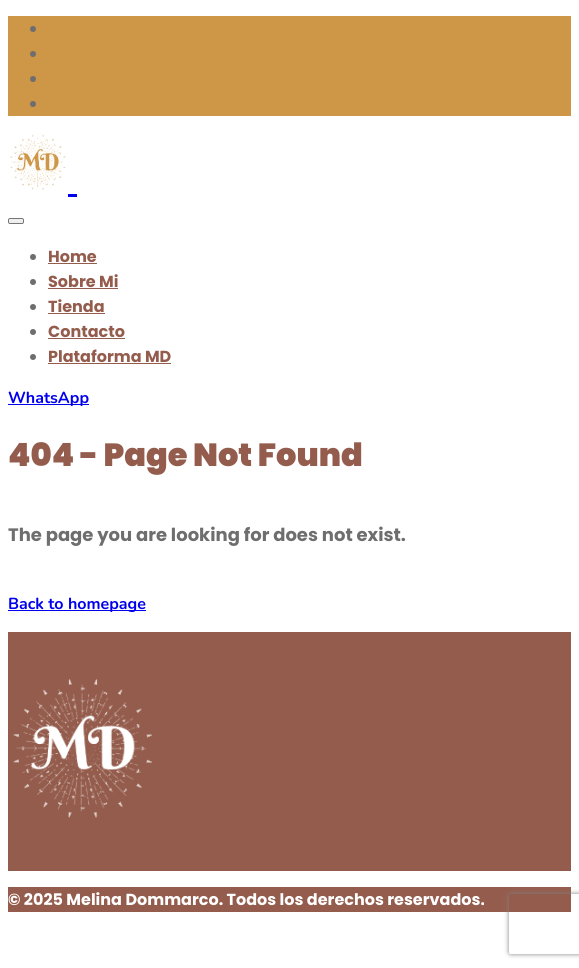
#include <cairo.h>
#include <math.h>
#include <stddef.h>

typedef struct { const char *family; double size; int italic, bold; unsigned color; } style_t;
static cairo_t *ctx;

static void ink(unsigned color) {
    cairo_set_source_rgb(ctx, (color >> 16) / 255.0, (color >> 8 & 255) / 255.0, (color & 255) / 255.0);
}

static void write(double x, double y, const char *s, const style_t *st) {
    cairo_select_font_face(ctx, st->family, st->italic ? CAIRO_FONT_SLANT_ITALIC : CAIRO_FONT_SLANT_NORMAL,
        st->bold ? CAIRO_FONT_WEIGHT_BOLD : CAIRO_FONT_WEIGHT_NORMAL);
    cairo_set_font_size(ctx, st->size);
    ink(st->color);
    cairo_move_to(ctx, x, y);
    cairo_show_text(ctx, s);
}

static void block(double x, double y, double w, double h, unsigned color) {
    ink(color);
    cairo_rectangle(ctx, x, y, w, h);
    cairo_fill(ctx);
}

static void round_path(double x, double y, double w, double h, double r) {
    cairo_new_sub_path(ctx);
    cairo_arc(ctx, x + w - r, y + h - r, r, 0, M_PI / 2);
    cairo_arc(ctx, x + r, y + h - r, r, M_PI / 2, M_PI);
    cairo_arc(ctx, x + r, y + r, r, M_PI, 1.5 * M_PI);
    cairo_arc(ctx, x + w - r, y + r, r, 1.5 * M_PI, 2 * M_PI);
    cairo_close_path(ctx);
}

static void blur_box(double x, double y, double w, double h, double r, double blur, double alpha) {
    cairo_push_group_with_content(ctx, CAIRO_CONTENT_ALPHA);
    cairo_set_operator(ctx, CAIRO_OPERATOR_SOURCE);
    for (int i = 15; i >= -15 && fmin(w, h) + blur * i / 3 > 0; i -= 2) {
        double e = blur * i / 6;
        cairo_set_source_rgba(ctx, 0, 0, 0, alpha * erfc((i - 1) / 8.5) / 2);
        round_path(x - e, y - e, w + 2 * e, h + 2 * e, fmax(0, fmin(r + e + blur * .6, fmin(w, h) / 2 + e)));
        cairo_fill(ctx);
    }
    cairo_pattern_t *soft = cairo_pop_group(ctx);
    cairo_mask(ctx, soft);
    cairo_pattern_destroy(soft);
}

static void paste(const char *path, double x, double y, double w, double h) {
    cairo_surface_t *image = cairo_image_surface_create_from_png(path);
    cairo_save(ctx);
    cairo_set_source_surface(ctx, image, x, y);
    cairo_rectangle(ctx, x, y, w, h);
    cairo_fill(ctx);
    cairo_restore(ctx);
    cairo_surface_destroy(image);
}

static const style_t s1 = {"Poppins", 16, 0, 1, 0x945c4c};
static const style_t s2 = {"Nunito ExtraLight", 16, 0, 0, 0x0000ee};
static const style_t s3 = {"Poppins Black", 32, 0, 0, 0x945c4c};
static const style_t s4 = {"Poppins", 18, 0, 1, 0x6e6e6e};
static const style_t s5 = {"Poppins", 16, 0, 1, 0xffffff};

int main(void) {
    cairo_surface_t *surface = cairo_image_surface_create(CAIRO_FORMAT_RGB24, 579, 968);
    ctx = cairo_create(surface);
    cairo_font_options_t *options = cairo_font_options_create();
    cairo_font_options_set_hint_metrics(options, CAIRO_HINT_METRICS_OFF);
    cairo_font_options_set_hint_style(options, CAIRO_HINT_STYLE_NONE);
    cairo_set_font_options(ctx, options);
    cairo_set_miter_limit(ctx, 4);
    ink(0xffffff);
    cairo_paint(ctx);
    block(8, 16, 563, 100, 0xce9647);
    ink(0x6e6e6e);
    cairo_arc(ctx, 33, 29, 3, 0, 2 * M_PI);
    cairo_fill(ctx);
    cairo_arc(ctx, 33, 54, 3, 0, 2 * M_PI);
    cairo_fill(ctx);
    cairo_arc(ctx, 33, 79, 3, 0, 2 * M_PI);
    cairo_fill(ctx);
    cairo_arc(ctx, 33, 104, 3, 0, 2 * M_PI);
    cairo_fill(ctx);
    paste("pic1.png", 10, 134, 56, 56);
    block(68, 194, 9, 3, 0x0000ee);
    ink(0xefefef);
    round_path(8.5, 218.5, 15, 5, 1.5);
    cairo_fill_preserve(ctx);
    ink(0x767676);
    cairo_set_line_width(ctx, 1);
    cairo_stroke(ctx);
    ink(0x6e6e6e);
    cairo_arc(ctx, 33, 257, 3, 0, 2 * M_PI);
    cairo_fill(ctx);
    write(48, 262, "Home", &s1);
    block(48, 263, 49, 1, 0x945c4c);
    ink(0x6e6e6e);
    cairo_new_path(ctx);
    cairo_arc(ctx, 33, 282, 3, 0, 2 * M_PI);
    cairo_fill(ctx);
    write(48, 287, "Sobre Mi", &s1);
    block(48, 288, 70, 1, 0x945c4c);
    ink(0x6e6e6e);
    cairo_new_path(ctx);
    cairo_arc(ctx, 33, 307, 3, 0, 2 * M_PI);
    cairo_fill(ctx);
    write(48, 312, "Tienda", &s1);
    block(48, 313, 57, 1, 0x945c4c);
    ink(0x6e6e6e);
    cairo_new_path(ctx);
    cairo_arc(ctx, 33, 332, 3, 0, 2 * M_PI);
    cairo_fill(ctx);
    write(48, 337, "Contacto", &s1);
    block(48, 338, 77, 1, 0x945c4c);
    ink(0x6e6e6e);
    cairo_new_path(ctx);
    cairo_arc(ctx, 33, 357, 3, 0, 2 * M_PI);
    cairo_fill(ctx);
    write(48, 362, "Plataforma MD", &s1);
    block(48, 363, 123, 1, 0x945c4c);
    block(8, 404, 81, 1, 0x0000ee);
    write(8, 403, "WhatsApp", &s2);
    write(8, 466, "404 - Page Not Found", &s3);
    write(8, 541, "The page you are looking for does not exist.", &s4);
    block(8, 610, 138, 1, 0x0000ee);
    write(8, 609, "Back to homepage", &s2);
    block(8, 632, 563, 239, 0x945c4c);
    paste("pic2.png", 13, 679, 139, 139);
    block(8, 887, 563, 25, 0x945c4c);
    write(8, 905, "© 2025 Melina Dommarco. Todos los derechos reservados.", &s5);
    cairo_save(ctx);
    cairo_set_fill_rule(ctx, CAIRO_FILL_RULE_EVEN_ODD);
    cairo_new_path(ctx);
    cairo_move_to(ctx, 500, 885);
    cairo_line_to(ctx, 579, 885);
    cairo_line_to(ctx, 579, 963);
    cairo_line_to(ctx, 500, 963);
    cairo_close_path(ctx);
    cairo_move_to(ctx, 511, 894);
    cairo_line_to(ctx, 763, 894);
    cairo_curve_to(ctx, 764, 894, 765, 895, 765, 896);
    cairo_line_to(ctx, 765, 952);
    cairo_curve_to(ctx, 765, 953, 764, 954, 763, 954);
    cairo_line_to(ctx, 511, 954);
    cairo_curve_to(ctx, 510, 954, 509, 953, 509, 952);
    cairo_line_to(ctx, 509, 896);
    cairo_curve_to(ctx, 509, 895, 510, 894, 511, 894);
    cairo_close_path(ctx);
    cairo_clip(ctx);
    ink(0x808080);
    blur_box(509, 894, 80, 60, 2, 2.5, 1);
    cairo_restore(ctx);
    cairo_surface_write_to_png(surface, "screenshot.png");
    cairo_font_options_destroy(options);
    cairo_destroy(ctx);
    cairo_surface_destroy(surface);
    return 0;
}
